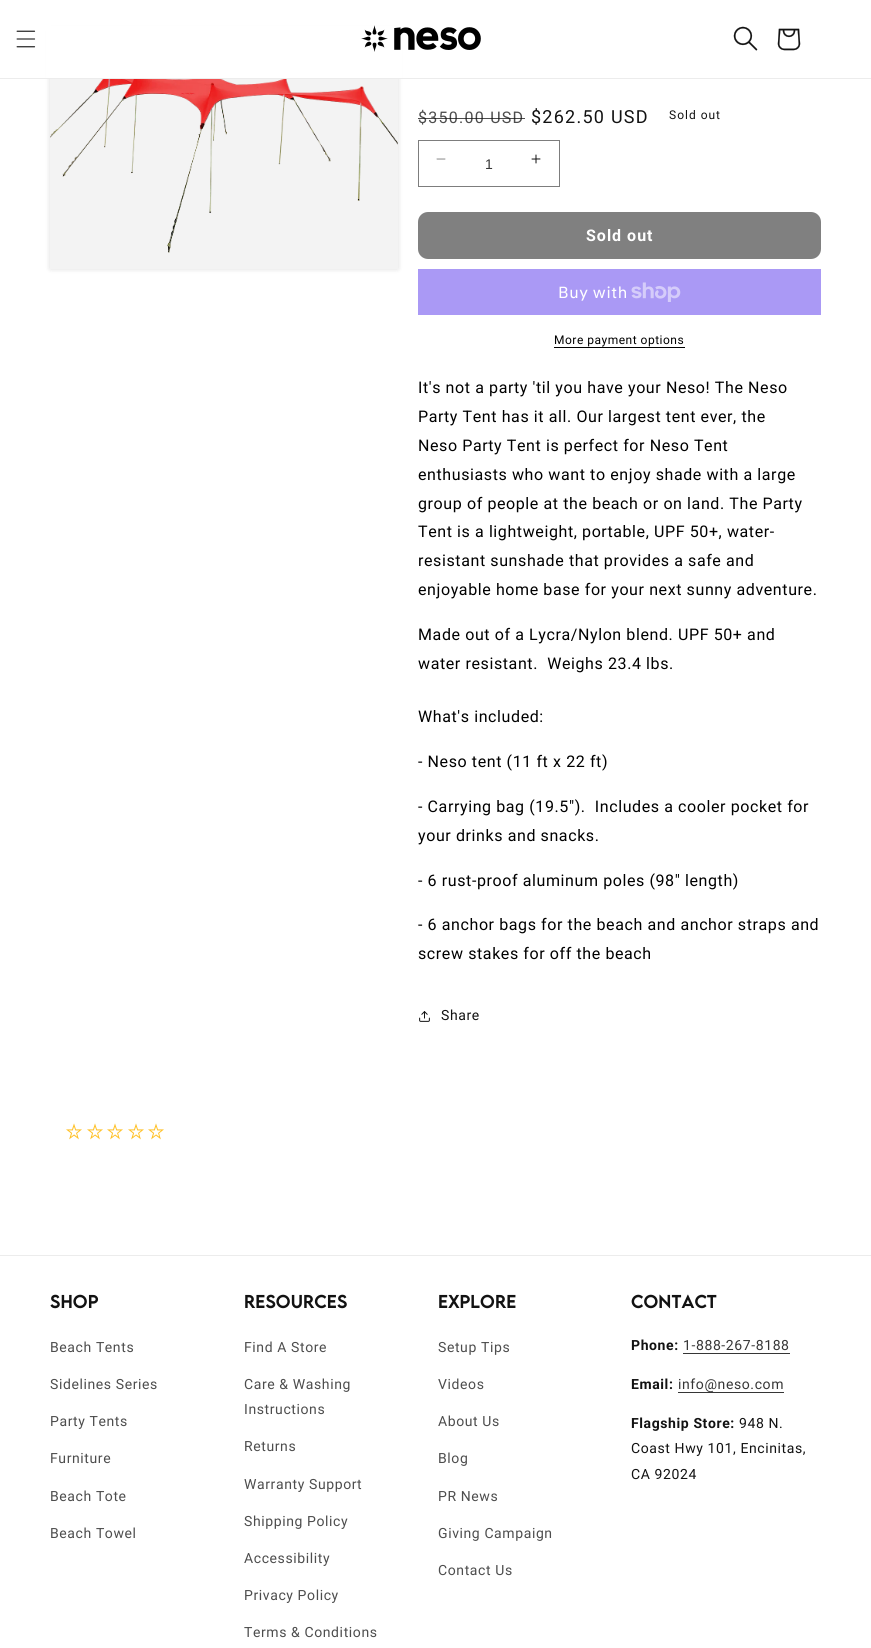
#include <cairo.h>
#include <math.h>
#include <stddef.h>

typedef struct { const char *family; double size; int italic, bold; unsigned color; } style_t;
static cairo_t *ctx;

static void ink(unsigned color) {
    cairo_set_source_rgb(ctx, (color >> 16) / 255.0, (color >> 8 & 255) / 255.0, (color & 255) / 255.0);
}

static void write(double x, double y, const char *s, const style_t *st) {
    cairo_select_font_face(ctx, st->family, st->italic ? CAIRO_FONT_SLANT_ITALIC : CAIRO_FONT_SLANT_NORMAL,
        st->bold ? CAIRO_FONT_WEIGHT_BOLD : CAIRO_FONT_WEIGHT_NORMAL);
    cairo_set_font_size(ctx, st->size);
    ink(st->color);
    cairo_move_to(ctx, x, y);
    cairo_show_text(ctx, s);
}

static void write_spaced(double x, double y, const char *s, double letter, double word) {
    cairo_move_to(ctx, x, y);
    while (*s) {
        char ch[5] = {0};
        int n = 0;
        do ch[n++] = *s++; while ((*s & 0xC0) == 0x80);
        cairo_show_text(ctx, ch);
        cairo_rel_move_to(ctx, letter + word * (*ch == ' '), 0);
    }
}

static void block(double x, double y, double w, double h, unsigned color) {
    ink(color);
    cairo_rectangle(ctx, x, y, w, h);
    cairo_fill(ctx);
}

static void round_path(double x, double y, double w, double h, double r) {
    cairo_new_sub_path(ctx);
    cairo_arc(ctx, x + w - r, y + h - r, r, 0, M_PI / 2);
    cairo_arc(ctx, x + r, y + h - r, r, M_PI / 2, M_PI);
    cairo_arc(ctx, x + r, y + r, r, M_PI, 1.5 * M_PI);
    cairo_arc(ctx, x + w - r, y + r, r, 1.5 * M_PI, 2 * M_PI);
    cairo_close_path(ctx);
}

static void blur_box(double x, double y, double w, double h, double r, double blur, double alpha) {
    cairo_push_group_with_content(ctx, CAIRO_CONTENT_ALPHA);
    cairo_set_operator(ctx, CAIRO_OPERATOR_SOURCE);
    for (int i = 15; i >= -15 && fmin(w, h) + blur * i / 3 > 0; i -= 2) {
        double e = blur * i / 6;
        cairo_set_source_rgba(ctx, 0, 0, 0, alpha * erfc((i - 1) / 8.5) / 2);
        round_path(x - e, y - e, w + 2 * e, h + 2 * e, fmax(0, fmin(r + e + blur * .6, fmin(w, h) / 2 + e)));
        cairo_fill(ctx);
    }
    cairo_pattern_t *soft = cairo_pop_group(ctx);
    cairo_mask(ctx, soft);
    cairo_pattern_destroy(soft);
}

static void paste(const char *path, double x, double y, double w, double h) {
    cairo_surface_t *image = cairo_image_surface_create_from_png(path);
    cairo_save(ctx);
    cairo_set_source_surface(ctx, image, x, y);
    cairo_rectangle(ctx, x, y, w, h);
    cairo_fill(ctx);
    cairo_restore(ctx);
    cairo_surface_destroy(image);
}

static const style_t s1 = {"Liberation Sans", 14, 0, 0, 0x363636};

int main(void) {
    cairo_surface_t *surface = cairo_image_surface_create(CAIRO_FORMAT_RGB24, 871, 1648);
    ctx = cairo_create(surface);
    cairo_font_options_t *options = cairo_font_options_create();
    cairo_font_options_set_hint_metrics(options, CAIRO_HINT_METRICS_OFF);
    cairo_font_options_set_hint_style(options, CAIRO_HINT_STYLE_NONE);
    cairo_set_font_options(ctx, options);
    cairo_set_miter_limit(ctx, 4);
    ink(0xffffff);
    cairo_paint(ctx);
    ink(0x121212);
    blur_box(50, 30, 348, 239, 0, 2.5, 0.15);
    block(46, 26, 356, 52, 0xffffff);
    block(0, 78, 871, 1, 0xececec);
    paste("pic1.png", 16, 30, 20, 18);
    paste("pic2.png", 361, 25, 120, 27);
    paste("pic3.png", 733, 26, 25, 25);
    paste("pic4.png", 777, 28, 24, 23);
    block(50, 79, 348, 190, 0xf3f3f3);
    paste("pic5.png", 50, 79, 348, 174);
    cairo_select_font_face(ctx, "Roboto", CAIRO_FONT_SLANT_NORMAL, CAIRO_FONT_WEIGHT_NORMAL);
    cairo_set_font_size(ctx, 16);
    ink(0x4d4d4d);
    write_spaced(418, 123, "$350.00 USD", 1.25, 0);
    cairo_set_source_rgba(ctx, 0.071, 0.071, 0.071, 0.75);
    cairo_rectangle(ctx, 418, 118, 107, 1);
    cairo_fill(ctx);
    cairo_set_font_size(ctx, 18);
    ink(0x121212);
    write_spaced(531, 123, "$262.50 USD", 1.25, 0);
    cairo_set_font_size(ctx, 12);
    write_spaced(669, 119, "Sold out", 1, 0);
    paste("pic6.png", 436, 158, 10, 2);
    paste("pic7.png", 531, 154, 10, 10);
    cairo_rectangle(ctx, 418.5, 140.5, 141, 46);
    ink(0x7d7d7d);
    cairo_set_line_width(ctx, 1);
    cairo_stroke(ctx);
    write(485, 169, "1", &s1);
    ink(0x808080);
    round_path(418, 212, 403, 47, 10);
    cairo_fill(ctx);
    cairo_select_font_face(ctx, "Roboto", CAIRO_FONT_SLANT_NORMAL, CAIRO_FONT_WEIGHT_BOLD);
    cairo_set_font_size(ctx, 16);
    ink(0xffffff);
    write_spaced(586, 241, "Sold out", 1, 0);
    block(418, 269, 403, 46, 0xaa99f5);
    cairo_select_font_face(ctx, "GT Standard", CAIRO_FONT_SLANT_NORMAL, CAIRO_FONT_WEIGHT_NORMAL);
    ink(0xffffff);
    write_spaced(558, 298, "Buy with", 0.6, 0);
    paste("pic8.png", 631, 282, 50, 20);
    cairo_select_font_face(ctx, "Roboto", CAIRO_FONT_SLANT_NORMAL, CAIRO_FONT_WEIGHT_NORMAL);
    cairo_set_font_size(ctx, 12);
    ink(0x000000);
    write_spaced(554, 344, "More payment options", 0.5, 0);
    block(554, 347, 131, 1, 0x000000);
    cairo_set_font_size(ctx, 16);
    write_spaced(418, 393, "It's not a party 'til you have your Neso! The Neso", 0.6, 0);
    write_spaced(418, 422, "Party Tent has it all. Our largest tent ever, the", 0.6, 0);
    write_spaced(418, 451, "Neso Party Tent is perfect for Neso Tent", 0.6, 0);
    write_spaced(418, 480, "enthusiasts who want to enjoy shade with a large", 0.6, 0);
    write_spaced(418, 509, "group of people at the beach or on land. The Party", 0.6, 0);
    write_spaced(418, 537, "Tent is a lightweight, portable, UPF 50+, water-", 0.6, 0);
    write_spaced(418, 566, "resistant sunshade that provides a safe and", 0.6, 0);
    write_spaced(418, 595, "enjoyable home base for your next sunny adventure.", 0.6, 0);
    write_spaced(418, 640, "Made out of a Lycra/Nylon blend. UPF 50+ and", 0.6, 0);
    write_spaced(418, 669, "water resistant.  Weighs 23.4 lbs.", 0.6, 0);
    write_spaced(418, 722, "What's included:", 0.6, 0);
    write_spaced(418, 767, "- Neso tent (11 ft x 22 ft)", 0.6, 0);
    write_spaced(418, 812, "- Carrying bag (19.5\").  Includes a cooler pocket for", 0.6, 0);
    write_spaced(418, 841, "your drinks and snacks.", 0.6, 0);
    write_spaced(418, 886, "- 6 rust-proof aluminum poles (98\" length)", 0.6, 0);
    write_spaced(418, 930, "- 6 anchor bags for the beach and anchor straps and", 0.6, 0);
    write_spaced(418, 959, "screw stakes for off the beach", 0.6, 0);
    paste("pic9.png", 419, 1011, 11, 11);
    cairo_set_font_size(ctx, 14);
    ink(0x121212);
    write_spaced(441, 1020, "Share", 0.6, 0);
    paste("pic10.png", 66, 1123, 16, 17);
    paste("pic10.png", 87, 1123, 16, 17);
    paste("pic10.png", 107, 1123, 16, 17);
    paste("pic10.png", 128, 1123, 16, 17);
    paste("pic10.png", 148, 1123, 16, 17);
    block(0, 1255, 871, 1, 0xececec);
    cairo_select_font_face(ctx, "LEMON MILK", CAIRO_FONT_SLANT_NORMAL, CAIRO_FONT_WEIGHT_BOLD);
    cairo_set_font_size(ctx, 16);
    ink(0x121212);
    write_spaced(50, 1308, "Shop", 0.6, 0);
    cairo_select_font_face(ctx, "Roboto", CAIRO_FONT_SLANT_NORMAL, CAIRO_FONT_WEIGHT_NORMAL);
    cairo_set_font_size(ctx, 14);
    ink(0x4d4d4d);
    write_spaced(50, 1352, "Beach Tents", 0.6, 0);
    write_spaced(50, 1389, "Sidelines Series", 0.6, 0);
    write_spaced(50, 1426, "Party Tents", 0.6, 0);
    write_spaced(50, 1463, "Furniture", 0.6, 0);
    write_spaced(50, 1501, "Beach Tote", 0.6, 0);
    write_spaced(50, 1538, "Beach Towel", 0.6, 0);
    cairo_select_font_face(ctx, "LEMON MILK", CAIRO_FONT_SLANT_NORMAL, CAIRO_FONT_WEIGHT_BOLD);
    cairo_set_font_size(ctx, 16);
    ink(0x121212);
    write_spaced(244, 1308, "Resources", 0.6, 0);
    cairo_select_font_face(ctx, "Roboto", CAIRO_FONT_SLANT_NORMAL, CAIRO_FONT_WEIGHT_NORMAL);
    cairo_set_font_size(ctx, 14);
    ink(0x4d4d4d);
    write_spaced(244, 1352, "Find A Store", 0.6, 0);
    write_spaced(244, 1389, "Care & Washing", 0.6, 0);
    write_spaced(244, 1414, "Instructions", 0.6, 0);
    write_spaced(244, 1451, "Returns", 0.6, 0);
    write_spaced(244, 1489, "Warranty Support", 0.6, 0);
    write_spaced(244, 1526, "Shipping Policy", 0.6, 0);
    write_spaced(244, 1563, "Accessibility", 0.6, 0);
    write_spaced(244, 1600, "Privacy Policy", 0.6, 0);
    write_spaced(244, 1637, "Terms & Conditions", 0.6, 0);
    cairo_select_font_face(ctx, "LEMON MILK", CAIRO_FONT_SLANT_NORMAL, CAIRO_FONT_WEIGHT_BOLD);
    cairo_set_font_size(ctx, 16);
    ink(0x121212);
    write_spaced(438, 1308, "Explore", 0.6, 0);
    cairo_select_font_face(ctx, "Roboto", CAIRO_FONT_SLANT_NORMAL, CAIRO_FONT_WEIGHT_NORMAL);
    cairo_set_font_size(ctx, 14);
    ink(0x4d4d4d);
    write_spaced(438, 1352, "Setup Tips", 0.6, 0);
    write_spaced(438, 1389, "Videos", 0.6, 0);
    write_spaced(438, 1426, "About Us", 0.6, 0);
    write_spaced(438, 1463, "Blog", 0.6, 0);
    write_spaced(438, 1501, "PR News", 0.6, 0);
    write_spaced(438, 1538, "Giving Campaign", 0.6, 0);
    write_spaced(438, 1575, "Contact Us", 0.6, 0);
    cairo_select_font_face(ctx, "LEMON MILK", CAIRO_FONT_SLANT_NORMAL, CAIRO_FONT_WEIGHT_BOLD);
    cairo_set_font_size(ctx, 16);
    ink(0x121212);
    write_spaced(631, 1308, "Contact", 0.6, 0);
    cairo_select_font_face(ctx, "Roboto", CAIRO_FONT_SLANT_NORMAL, CAIRO_FONT_WEIGHT_BOLD);
    cairo_set_font_size(ctx, 14);
    write_spaced(631, 1350, "Phone:", 0.6, 0);
    cairo_select_font_face(ctx, "Roboto", CAIRO_FONT_SLANT_NORMAL, CAIRO_FONT_WEIGHT_NORMAL);
    ink(0x363636);
    write_spaced(683, 1350, "1-888-267-8188", 0.6, 0);
    block(683, 1353, 107, 1, 0x363636);
    cairo_select_font_face(ctx, "Roboto", CAIRO_FONT_SLANT_NORMAL, CAIRO_FONT_WEIGHT_BOLD);
    ink(0x121212);
    write_spaced(631, 1389, "Email:", 0.6, 0);
    block(678, 1392, 106, 1, 0x363636);
    cairo_select_font_face(ctx, "Roboto", CAIRO_FONT_SLANT_NORMAL, CAIRO_FONT_WEIGHT_NORMAL);
    write_spaced(678, 1389, "info@neso.com", 0.6, 0);
    cairo_select_font_face(ctx, "Roboto", CAIRO_FONT_SLANT_NORMAL, CAIRO_FONT_WEIGHT_BOLD);
    ink(0x121212);
    write_spaced(631, 1428, "Flagship Store:", 0.6, 0);
    cairo_select_font_face(ctx, "Roboto", CAIRO_FONT_SLANT_NORMAL, CAIRO_FONT_WEIGHT_NORMAL);
    write_spaced(739, 1428, "948 N.", 0.6, 0);
    write_spaced(631, 1453, "Coast Hwy 101, Encinitas,", 0.6, 0);
    write_spaced(631, 1479, "CA 92024", 0.6, 0);
    cairo_surface_write_to_png(surface, "screenshot.png");
    cairo_font_options_destroy(options);
    cairo_destroy(ctx);
    cairo_surface_destroy(surface);
    return 0;
}
